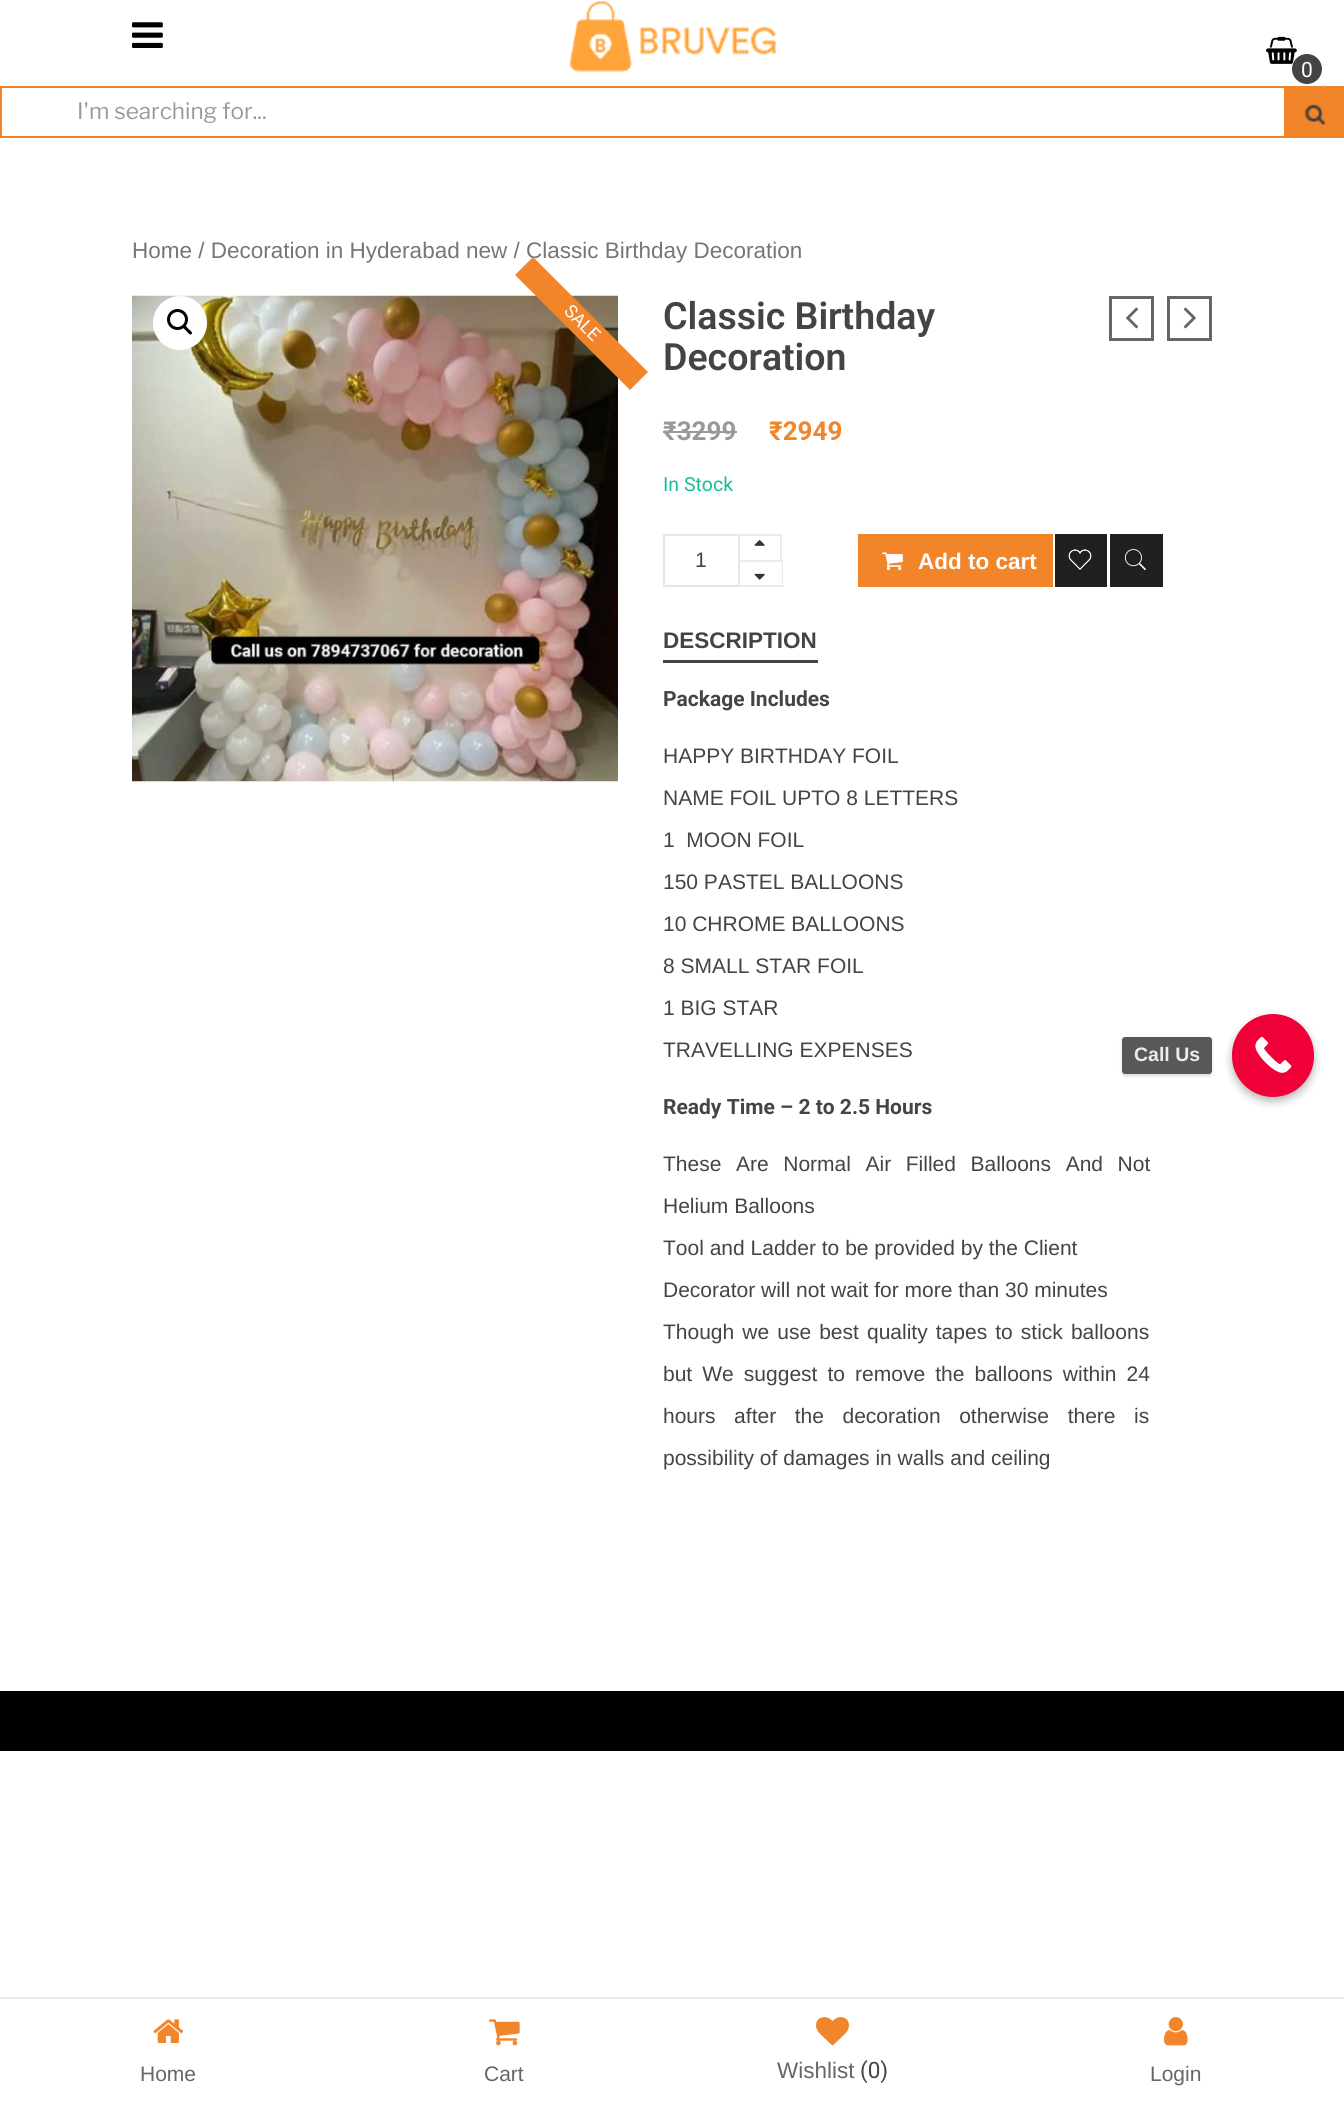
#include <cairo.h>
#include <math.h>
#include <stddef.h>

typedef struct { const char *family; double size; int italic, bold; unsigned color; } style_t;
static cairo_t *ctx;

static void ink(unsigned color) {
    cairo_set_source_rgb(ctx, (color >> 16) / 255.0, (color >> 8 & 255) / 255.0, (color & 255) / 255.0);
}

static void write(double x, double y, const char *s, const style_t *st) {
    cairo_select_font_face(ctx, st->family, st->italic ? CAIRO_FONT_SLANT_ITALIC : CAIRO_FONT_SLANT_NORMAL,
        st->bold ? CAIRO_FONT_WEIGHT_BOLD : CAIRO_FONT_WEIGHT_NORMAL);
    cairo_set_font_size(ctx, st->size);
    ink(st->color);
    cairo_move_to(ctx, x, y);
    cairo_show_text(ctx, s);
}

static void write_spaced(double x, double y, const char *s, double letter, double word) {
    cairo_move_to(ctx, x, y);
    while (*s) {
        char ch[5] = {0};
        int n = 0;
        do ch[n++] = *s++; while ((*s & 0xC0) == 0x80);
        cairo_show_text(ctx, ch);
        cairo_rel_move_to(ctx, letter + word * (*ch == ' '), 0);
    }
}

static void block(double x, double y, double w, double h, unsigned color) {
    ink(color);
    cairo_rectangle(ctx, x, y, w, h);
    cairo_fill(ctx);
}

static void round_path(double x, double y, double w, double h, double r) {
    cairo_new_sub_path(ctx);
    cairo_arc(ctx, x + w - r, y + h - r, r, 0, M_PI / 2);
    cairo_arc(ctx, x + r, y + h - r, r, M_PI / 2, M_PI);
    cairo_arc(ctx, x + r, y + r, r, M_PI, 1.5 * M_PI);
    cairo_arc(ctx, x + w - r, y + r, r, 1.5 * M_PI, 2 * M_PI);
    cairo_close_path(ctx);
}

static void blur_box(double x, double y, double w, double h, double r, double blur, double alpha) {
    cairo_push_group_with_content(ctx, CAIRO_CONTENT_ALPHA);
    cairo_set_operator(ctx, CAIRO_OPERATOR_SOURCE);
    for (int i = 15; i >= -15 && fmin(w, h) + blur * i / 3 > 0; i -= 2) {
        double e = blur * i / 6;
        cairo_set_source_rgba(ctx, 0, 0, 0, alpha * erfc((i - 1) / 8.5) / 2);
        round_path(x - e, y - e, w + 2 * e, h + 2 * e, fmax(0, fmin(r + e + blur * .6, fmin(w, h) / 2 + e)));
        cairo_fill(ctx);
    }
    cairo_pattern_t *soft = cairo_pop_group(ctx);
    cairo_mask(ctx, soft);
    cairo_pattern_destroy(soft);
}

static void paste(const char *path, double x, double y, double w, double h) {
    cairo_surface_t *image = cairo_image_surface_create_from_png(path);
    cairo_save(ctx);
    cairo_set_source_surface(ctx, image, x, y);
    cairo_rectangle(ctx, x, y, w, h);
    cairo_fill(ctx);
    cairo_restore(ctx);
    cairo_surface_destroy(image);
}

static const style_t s1 = {"Roboto", 21, 0, 0, 0xffffff};
static const style_t s2 = {"Libre Franklin", 22.5, 0, 0, 0x999999};
static const style_t s3 = {"Liberation Sans", 22.5, 0, 0, 0x767676};
static const style_t s4 = {"Roboto", 18, 0, 0, 0xffffff};
static const style_t s5 = {"Roboto SemiBold", 37.5, 0, 0, 0x444444};
static const style_t s6 = {"Roboto", 26, 0, 1, 0x999999};
static const style_t s7 = {"Roboto", 26, 0, 1, 0xf28529};
static const style_t s8 = {"Roboto", 19.5, 0, 0, 0x15bd9c};
static const style_t s9 = {"Liberation Sans", 21, 0, 0, 0x444444};
static const style_t s10 = {"Liberation Sans", 22.5, 0, 1, 0xffffff};
static const style_t s11 = {"Liberation Sans", 22.5, 0, 1, 0x444444};
static const style_t s12 = {"Roboto", 21, 0, 1, 0x444444};
static const style_t s13 = {"Liberation Sans", 19.5, 0, 1, 0xececec};
static const style_t s14 = {"Liberation Sans", 21, 0, 0, 0x666666};
static const style_t s15 = {"Liberation Sans", 22.5, 0, 0, 0x666666};
static const style_t s16 = {"Roboto", 22.5, 0, 0, 0x444444};

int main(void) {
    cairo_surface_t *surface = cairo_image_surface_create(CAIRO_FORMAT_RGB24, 1344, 2110);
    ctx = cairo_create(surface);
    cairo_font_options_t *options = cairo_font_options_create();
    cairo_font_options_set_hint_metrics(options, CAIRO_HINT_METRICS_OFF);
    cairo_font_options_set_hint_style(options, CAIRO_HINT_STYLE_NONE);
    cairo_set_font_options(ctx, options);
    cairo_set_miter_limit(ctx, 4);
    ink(0xffffff);
    cairo_paint(ctx);
    paste("pic1.png", 132, 22, 31, 26);
    paste("pic2.png", 1266, 36, 31, 28);
    ink(0x444444);
    cairo_arc(ctx, 1307, 69, 15, 0, 2 * M_PI);
    cairo_fill(ctx);
    write(1301, 77, "0", &s1);
    paste("pic3.png", 569, 1, 207, 72);
    cairo_rectangle(ctx, 1, 87, 1342, 50);
    ink(0xf28529);
    cairo_stroke(ctx);
    write(77, 119, "I'm searching for...", &s2);
    block(1284, 88, 58, 48, 0xf28529);
    paste("pic4.png", 1304, 85, 23, 40);
    write(132, 258, "Home / Decoration in Hyderabad new / Classic Birthday Decoration", &s3);
    paste("pic5.png", 132, 295, 486, 487);
    ink(0xffffff);
    cairo_arc(ctx, 180, 323, 27, 0, 2 * M_PI);
    cairo_fill(ctx);
    cairo_arc(ctx, 177.5, 319.5, 9, 0, 2 * M_PI);
    ink(0x000000);
    cairo_set_line_width(ctx, 3);
    cairo_stroke(ctx);
    cairo_new_path(ctx);
    cairo_move_to(ctx, 183.5, 326);
    cairo_curve_to(ctx, 185, 324, 187.5, 328, 188.5, 329);
    cairo_curve_to(ctx, 189.5, 330, 193.5, 332.5, 191.5, 334);
    cairo_curve_to(ctx, 190, 336, 187.5, 332, 186.5, 331);
    cairo_curve_to(ctx, 185.5, 330, 181.5, 327.5, 183.5, 326);
    cairo_close_path(ctx);
    cairo_fill(ctx);
    ink(0xf28529);
    cairo_new_path(ctx);
    cairo_move_to(ctx, 533, 257);
    cairo_line_to(ctx, 648, 372);
    cairo_line_to(ctx, 630, 390);
    cairo_line_to(ctx, 515, 275);
    cairo_close_path(ctx);
    cairo_fill(ctx);
    cairo_save(ctx);
    cairo_translate(ctx, 563, 312);
    cairo_rotate(ctx, 45 * M_PI / 180);
    write(0, 0, "SALE", &s4);
    cairo_restore(ctx);
    write(663, 329, "Classic Birthday", &s5);
    write(663, 370, "Decoration", &s5);
    cairo_rectangle(ctx, 1110.5, 297.5, 42, 42);
    ink(0x666666);
    cairo_stroke(ctx);
    paste("pic6.png", 1126, 307, 13, 22);
    cairo_rectangle(ctx, 1168.5, 297.5, 42, 42);
    cairo_stroke(ctx);
    paste("pic7.png", 1183, 307, 13, 22);
    write(663, 440, "₹3299", &s6);
    block(663, 431, 74, 2, 0x999999);
    write(769, 440, "₹2949", &s7);
    write(663, 491, "In Stock", &s8);
    cairo_rectangle(ctx, 664, 535, 75, 51);
    ink(0xe5e5e5);
    cairo_set_line_width(ctx, 2);
    cairo_stroke(ctx);
    write(695, 567, "1", &s9);
    block(738, 534, 44, 2, 0xebebeb);
    block(780, 534, 2, 27, 0xebebeb);
    paste("pic8.png", 754, 540, 11, 6);
    block(738, 560, 45, 2, 0xebebeb);
    block(782, 560, 1, 27, 0xebebeb);
    block(738, 585, 45, 2, 0xebebeb);
    paste("pic9.png", 754, 573, 11, 7);
    block(858, 534, 195, 53, 0xf28529);
    paste("pic10.png", 882, 552, 21, 19);
    write(918, 569, "Add to cart", &s10);
    block(1055, 534, 52, 53, 0x202020);
    paste("pic11.png", 1068, 549, 24, 21);
    paste("pic12.png", 1068, 549, 24, 21);
    block(1110, 534, 53, 53, 0x202020);
    paste("pic13.png", 1124, 549, 22, 22);
    write(663, 648, "DESCRIPTION", &s11);
    block(663, 660, 155, 3, 0x444444);
    write(663, 706, "Package Includes", &s12);
    write(663, 763, "HAPPY BIRTHDAY FOIL", &s9);
    write(663, 805, "NAME FOIL UPTO 8 LETTERS", &s9);
    write(663, 847, "1  MOON FOIL", &s9);
    write(663, 889, "150 PASTEL BALLOONS", &s9);
    write(663, 931, "10 CHROME BALLOONS", &s9);
    write(663, 973, "8 SMALL STAR FOIL", &s9);
    write(663, 1015, "1 BIG STAR", &s9);
    write(663, 1057, "TRAVELLING EXPENSES", &s9);
    write(663, 1114, "Ready Time – 2 to 2.5 Hours", &s12);
    cairo_select_font_face(ctx, "Liberation Sans", CAIRO_FONT_SLANT_NORMAL, CAIRO_FONT_WEIGHT_NORMAL);
    write_spaced(663, 1171, "These Are Normal Air Filled Balloons And Not", 0, 8.75);
    write(663, 1213, "Helium Balloons", &s9);
    write(663, 1255, "Tool and Ladder to be provided by the Client", &s9);
    write(663, 1297, "Decorator will not wait for more than 30 minutes", &s9);
    write_spaced(663, 1339, "Though we use best quality tapes to stick balloons", 0, 2.25);
    write_spaced(663, 1381, "but We suggest to remove the balloons within 24", 0, 4.25);
    write_spaced(663, 1423, "hours after the decoration otherwise there is", 0, 12.75);
    write(663, 1465, "possibility of damages in walls and ceiling", &s9);
    block(0, 1691, 1344, 60, 0x000000);
    ink(0x000000);
    blur_box(1232, 1019, 82, 82, 41, 4.5, 0.3);
    ink(0xef0037);
    round_path(1232, 1014, 82, 83, 41);
    cairo_fill(ctx);
    paste("pic14.png", 1255, 1036, 37, 37);
    cairo_save(ctx);
    cairo_set_fill_rule(ctx, CAIRO_FILL_RULE_EVEN_ODD);
    cairo_new_path(ctx);
    cairo_move_to(ctx, 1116, 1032);
    cairo_line_to(ctx, 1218, 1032);
    cairo_line_to(ctx, 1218, 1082);
    cairo_line_to(ctx, 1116, 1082);
    cairo_close_path(ctx);
    cairo_move_to(ctx, 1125, 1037);
    cairo_line_to(ctx, 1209, 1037);
    cairo_curve_to(ctx, 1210.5, 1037, 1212, 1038.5, 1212, 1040);
    cairo_line_to(ctx, 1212, 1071);
    cairo_curve_to(ctx, 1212, 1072.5, 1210.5, 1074, 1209, 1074);
    cairo_line_to(ctx, 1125, 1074);
    cairo_curve_to(ctx, 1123.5, 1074, 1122, 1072.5, 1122, 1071);
    cairo_line_to(ctx, 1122, 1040);
    cairo_curve_to(ctx, 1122, 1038.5, 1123.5, 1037, 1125, 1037);
    cairo_close_path(ctx);
    cairo_clip(ctx);
    ink(0x000000);
    blur_box(1122, 1038, 90, 38, 3, 1.5, 0.15);
    cairo_restore(ctx);
    cairo_set_source_rgba(ctx, 0.275, 0.275, 0.275, 0.9);
    round_path(1122, 1037, 90, 37, 3);
    cairo_fill(ctx);
    write(1134, 1061, "Call Us", &s13);
    block(0, 1997, 1344, 2, 0xe8e8e8);
    paste("pic15.png", 153, 2019, 31, 24);
    write(140, 2081, "Home", &s14);
    paste("pic16.png", 489, 2019, 31, 27);
    write(484, 2081, "Cart", &s14);
    paste("pic17.png", 816, 2017, 33, 29);
    write(777, 2078, "Wishlist", &s15);
    write(860, 2078, "(0)", &s16);
    paste("pic18.png", 1164, 2017, 24, 29);
    write(1150, 2081, "Login", &s14);
    cairo_surface_write_to_png(surface, "screenshot.png");
    cairo_font_options_destroy(options);
    cairo_destroy(ctx);
    cairo_surface_destroy(surface);
    return 0;
}
